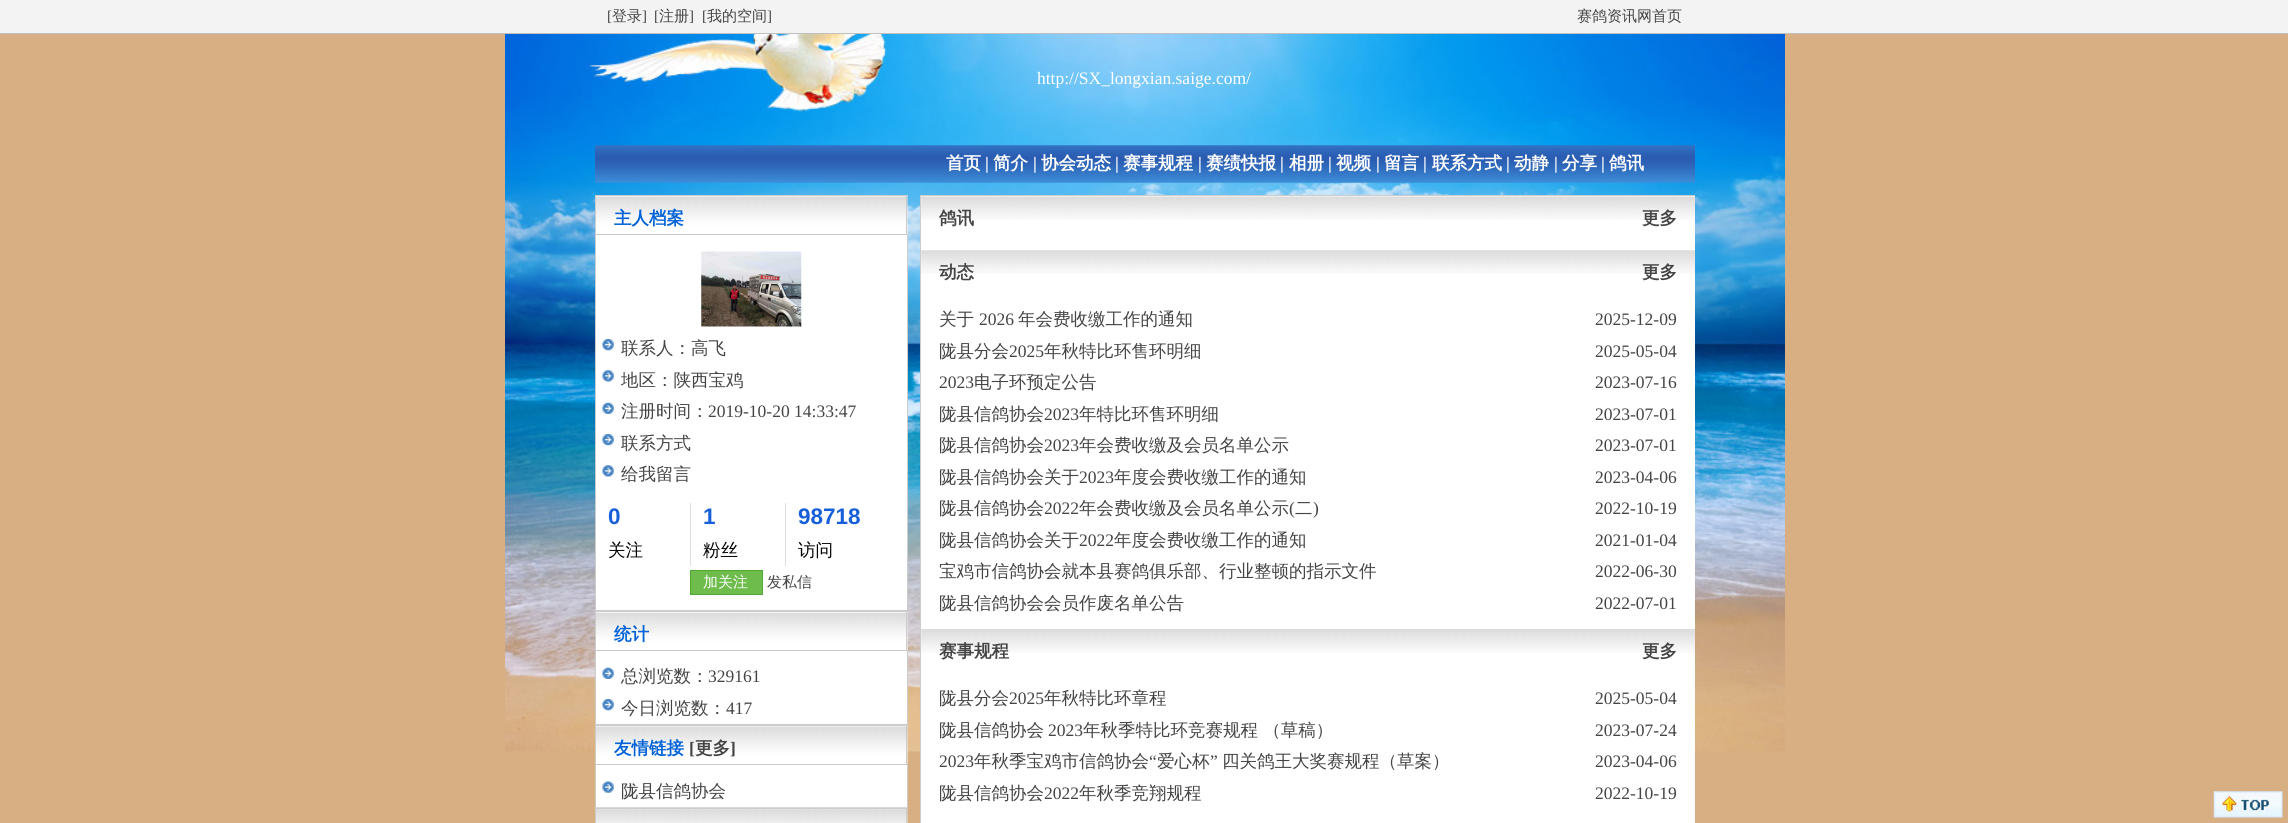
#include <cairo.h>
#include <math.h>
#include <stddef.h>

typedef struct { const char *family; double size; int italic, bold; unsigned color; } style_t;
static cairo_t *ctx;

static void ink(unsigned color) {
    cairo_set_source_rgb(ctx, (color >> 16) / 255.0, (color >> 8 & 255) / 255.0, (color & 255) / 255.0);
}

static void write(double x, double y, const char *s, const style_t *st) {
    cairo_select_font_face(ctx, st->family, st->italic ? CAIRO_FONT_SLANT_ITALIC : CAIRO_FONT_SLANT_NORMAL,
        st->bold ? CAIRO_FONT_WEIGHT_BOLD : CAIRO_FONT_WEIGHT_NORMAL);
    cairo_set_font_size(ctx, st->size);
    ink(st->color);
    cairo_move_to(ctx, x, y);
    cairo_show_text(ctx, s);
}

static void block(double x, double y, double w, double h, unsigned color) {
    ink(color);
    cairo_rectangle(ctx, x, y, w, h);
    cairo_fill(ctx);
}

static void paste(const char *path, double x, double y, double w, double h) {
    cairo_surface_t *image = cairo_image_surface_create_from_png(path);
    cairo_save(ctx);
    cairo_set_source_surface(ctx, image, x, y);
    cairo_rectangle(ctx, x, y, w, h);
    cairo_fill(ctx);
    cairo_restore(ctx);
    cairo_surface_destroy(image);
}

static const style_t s1 = {"Liberation Serif", 15, 0, 0, 0x444444};
static const style_t s2 = {"WenQuanYi Zen Hei Medium", 15, 0, 0, 0x444444};
static const style_t s3 = {"Liberation Serif", 17.5, 0, 0, 0xffffff};
static const style_t s4 = {"WenQuanYi Zen Hei", 17.5, 0, 1, 0xffffff};
static const style_t s5 = {"Liberation Serif", 17.5, 0, 1, 0xffffff};
static const style_t s6 = {"WenQuanYi Zen Hei", 17.5, 0, 1, 0x0162d7};
static const style_t s7 = {"WenQuanYi Zen Hei Medium", 17.5, 0, 0, 0x444444};
static const style_t s8 = {"Liberation Serif", 17.5, 0, 0, 0x444444};
static const style_t s9 = {"Liberation Sans", 22.5, 0, 1, 0x1860d9};
static const style_t s10 = {"WenQuanYi Zen Hei Medium", 17.5, 0, 0, 0x000000};
static const style_t s11 = {"WenQuanYi Zen Hei Medium", 15, 0, 0, 0xffffff};
static const style_t s12 = {"Liberation Serif", 17.5, 0, 1, 0x444444};
static const style_t s13 = {"WenQuanYi Zen Hei", 17.5, 0, 1, 0x444444};

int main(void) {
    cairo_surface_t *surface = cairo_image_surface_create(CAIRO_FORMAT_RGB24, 2288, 823);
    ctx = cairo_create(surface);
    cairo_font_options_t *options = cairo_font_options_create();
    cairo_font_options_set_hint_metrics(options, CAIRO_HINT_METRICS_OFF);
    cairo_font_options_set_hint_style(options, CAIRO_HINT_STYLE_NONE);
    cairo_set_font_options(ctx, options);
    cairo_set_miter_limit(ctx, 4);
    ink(0xd8af83);
    cairo_paint(ctx);
    paste("pic1.png", 505, 34, 1280, 718);
    block(0, 0, 2288, 33, 0xf2f3f2);
    block(0, 33, 2288, 1, 0xc0c0c0);
    write(607, 21, "[", &s1);
    write(612, 21, "登录", &s2);
    write(642, 21, "]", &s1);
    write(654, 21, "[", &s1);
    write(659, 21, "注册", &s2);
    write(689, 21, "]", &s1);
    write(702, 21, "[", &s1);
    write(707, 21, "我的空间", &s2);
    write(767, 21, "]", &s1);
    write(1577, 21, "赛鸽资讯网首页", &s2);
    write(1037, 84, "http://SX_longxian.saige.com/", &s3);
    paste("pic2.png", 595, 145, 1100, 38);
    write(946, 169, "首页", &s4);
    write(985, 169, "|", &s5);
    write(993, 169, "简介", &s4);
    write(1033, 169, "|", &s5);
    write(1041, 169, "协会动态", &s4);
    write(1115, 169, "|", &s5);
    write(1123, 169, "赛事规程", &s4);
    write(1198, 169, "|", &s5);
    write(1206, 169, "赛绩快报", &s4);
    write(1280, 169, "|", &s5);
    write(1289, 169, "相册", &s4);
    write(1328, 169, "|", &s5);
    write(1336, 169, "视频", &s4);
    write(1376, 169, "|", &s5);
    write(1384, 169, "留言", &s4);
    write(1423, 169, "|", &s5);
    write(1432, 169, "联系方式", &s4);
    write(1506, 169, "|", &s5);
    write(1514, 169, "动静", &s4);
    write(1554, 169, "|", &s5);
    write(1562, 169, "分享", &s4);
    write(1601, 169, "|", &s5);
    write(1609, 169, "鸽讯", &s4);
    paste("pic3.png", 596, 196, 312, 38);
    block(595, 195, 313, 1, 0xcccccc);
    block(906, 195, 1, 39, 0xcccccc);
    block(595, 195, 1, 39, 0xcccccc);
    write(614, 224, "主人档案", &s6);
    ink(0xffffff);
    cairo_rectangle(ctx, 595.5, 234.5, 312, 376);
    cairo_fill_preserve(ctx);
    ink(0xcccccc);
    cairo_set_line_width(ctx, 1);
    cairo_stroke(ctx);
    paste("pic4.png", 701, 251, 101, 76);
    paste("pic5.png", 602, 339, 12, 12);
    write(621, 354, "联系人：高飞", &s7);
    paste("pic6.png", 602, 370, 12, 12);
    write(621, 386, "地区：陕西宝鸡", &s7);
    paste("pic7.png", 602, 402, 12, 12);
    write(621, 417, "注册时间：", &s7);
    write(708, 417, "2019-10-20 14:33:47", &s8);
    paste("pic5.png", 602, 434, 12, 12);
    write(621, 449, "联系方式", &s7);
    paste("pic6.png", 602, 465, 12, 12);
    write(621, 480, "给我留言", &s7);
    block(690, 503, 1, 63, 0xdddddd);
    write(608, 524, "0", &s9);
    write(608, 556, "关注", &s10);
    block(785, 503, 1, 63, 0xdddddd);
    write(703, 524, "1", &s9);
    write(703, 556, "粉丝", &s10);
    write(798, 524, "98718", &s9);
    write(798, 556, "访问", &s10);
    ink(0x6ebd4c);
    cairo_rectangle(ctx, 690.5, 570.5, 72, 24);
    cairo_fill_preserve(ctx);
    ink(0x51a837);
    cairo_stroke(ctx);
    write(703, 587, "加关注", &s11);
    write(767, 587, "发私信", &s2);
    paste("pic8.png", 596, 612, 312, 38);
    block(595, 611, 313, 1, 0xcccccc);
    block(906, 611, 1, 39, 0xcccccc);
    block(595, 611, 1, 39, 0xcccccc);
    write(614, 640, "统计", &s6);
    ink(0xffffff);
    cairo_rectangle(ctx, 595.5, 650.5, 312, 74);
    cairo_fill_preserve(ctx);
    ink(0xcccccc);
    cairo_stroke(ctx);
    paste("pic7.png", 602, 667, 12, 12);
    write(621, 682, "总浏览数：", &s7);
    write(708, 682, "329161", &s8);
    paste("pic9.png", 602, 699, 12, 12);
    write(621, 714, "今日浏览数：", &s7);
    write(726, 714, "417", &s8);
    paste("pic10.png", 596, 726, 312, 38);
    block(595, 725, 313, 1, 0xcccccc);
    block(906, 725, 1, 39, 0xcccccc);
    block(595, 725, 1, 39, 0xcccccc);
    write(614, 754, "友情链接", &s6);
    write(689, 754, "[", &s12);
    write(695, 754, "更多", &s13);
    write(730, 754, "]", &s12);
    ink(0xffffff);
    cairo_rectangle(ctx, 595.5, 764.5, 312, 43);
    cairo_fill_preserve(ctx);
    ink(0xcccccc);
    cairo_stroke(ctx);
    paste("pic11.png", 602, 781, 12, 12);
    write(621, 797, "陇县信鸽协会", &s7);
    paste("pic12.png", 595, 807, 313, 16);
    block(595, 808, 313, 1, 0xcccccc);
    block(906, 808, 1, 15, 0xcccccc);
    block(595, 808, 1, 15, 0xcccccc);
    block(921, 196, 774, 627, 0xffffff);
    cairo_save(ctx);
    cairo_rectangle(ctx, 908, 195, 787, 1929);
    cairo_clip(ctx);
    cairo_rectangle(ctx, 920.5, 195.5, 777, 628);
    ink(0xcccccc);
    cairo_stroke(ctx);
    cairo_restore(ctx);
    paste("pic13.png", 921, 196, 774, 24);
    write(939, 224, "鸽讯", &s13);
    write(1642, 224, "更多", &s13);
    paste("pic14.png", 921, 250, 774, 24);
    write(939, 278, "动态", &s13);
    write(1642, 278, "更多", &s13);
    write(939, 325, "关于", &s7);
    write(979, 325, "2026", &s8);
    write(1018, 325, "年会费收缴工作的通知", &s7);
    write(1595, 325, "2025-12-09", &s8);
    write(939, 357, "陇县分会", &s7);
    write(1009, 357, "2025", &s8);
    write(1044, 357, "年秋特比环售环明细", &s7);
    write(1595, 357, "2025-05-04", &s8);
    write(939, 388, "2023", &s8);
    write(974, 388, "电子环预定公告", &s7);
    write(1595, 388, "2023-07-16", &s8);
    write(939, 420, "陇县信鸽协会", &s7);
    write(1044, 420, "2023", &s8);
    write(1079, 420, "年特比环售环明细", &s7);
    write(1595, 420, "2023-07-01", &s8);
    write(939, 451, "陇县信鸽协会", &s7);
    write(1044, 451, "2023", &s8);
    write(1079, 451, "年会费收缴及会员名单公示", &s7);
    write(1595, 451, "2023-07-01", &s8);
    write(939, 483, "陇县信鸽协会关于", &s7);
    write(1079, 483, "2023", &s8);
    write(1114, 483, "年度会费收缴工作的通知", &s7);
    write(1595, 483, "2023-04-06", &s8);
    write(939, 514, "陇县信鸽协会", &s7);
    write(1044, 514, "2022", &s8);
    write(1079, 514, "年会费收缴及会员名单公示", &s7);
    write(1289, 514, "(", &s8);
    write(1295, 514, "二", &s7);
    write(1313, 514, ")", &s8);
    write(1595, 514, "2022-10-19", &s8);
    write(939, 546, "陇县信鸽协会关于", &s7);
    write(1079, 546, "2022", &s8);
    write(1114, 546, "年度会费收缴工作的通知", &s7);
    write(1595, 546, "2021-01-04", &s8);
    write(939, 577, "宝鸡市信鸽协会就本县赛鸽俱乐部、行业整顿的指示文件", &s7);
    write(1595, 577, "2022-06-30", &s8);
    write(939, 609, "陇县信鸽协会会员作废名单公告", &s7);
    write(1595, 609, "2022-07-01", &s8);
    paste("pic15.png", 921, 629, 774, 24);
    write(939, 657, "赛事规程", &s13);
    write(1642, 657, "更多", &s13);
    write(939, 704, "陇县分会", &s7);
    write(1009, 704, "2025", &s8);
    write(1044, 704, "年秋特比环章程", &s7);
    write(1595, 704, "2025-05-04", &s8);
    write(939, 736, "陇县信鸽协会", &s7);
    write(1048, 736, "2023", &s8);
    write(1083, 736, "年秋季特比环竞赛规程 （草稿）", &s7);
    write(1595, 736, "2023-07-24", &s8);
    write(939, 767, "2023", &s8);
    write(974, 767, "年秋季宝鸡市信鸽协会", &s7);
    write(1149, 767, "“", &s8);
    write(1157, 767, "爱心杯", &s7);
    write(1210, 767, "”", &s8);
    write(1222, 767, "四关鸽王大奖赛规程（草案）", &s7);
    write(1595, 767, "2023-04-06", &s8);
    write(939, 799, "陇县信鸽协会", &s7);
    write(1044, 799, "2022", &s8);
    write(1079, 799, "年秋季竞翔规程", &s7);
    write(1595, 799, "2022-10-19", &s8);
    paste("pic16.png", 2213, 791, 70, 27);
    cairo_surface_write_to_png(surface, "screenshot.png");
    cairo_font_options_destroy(options);
    cairo_destroy(ctx);
    cairo_surface_destroy(surface);
    return 0;
}
